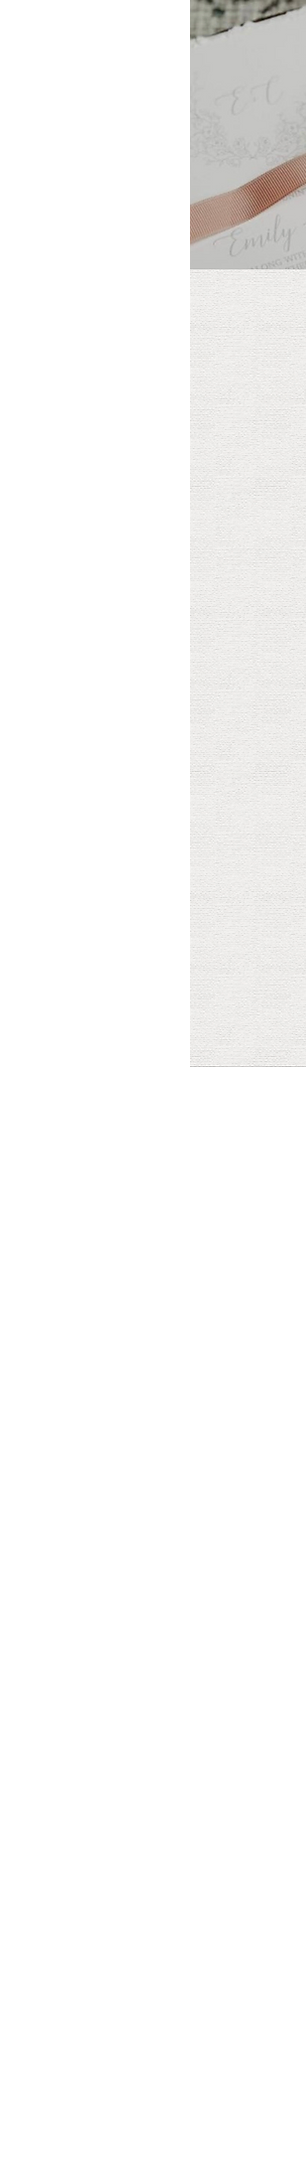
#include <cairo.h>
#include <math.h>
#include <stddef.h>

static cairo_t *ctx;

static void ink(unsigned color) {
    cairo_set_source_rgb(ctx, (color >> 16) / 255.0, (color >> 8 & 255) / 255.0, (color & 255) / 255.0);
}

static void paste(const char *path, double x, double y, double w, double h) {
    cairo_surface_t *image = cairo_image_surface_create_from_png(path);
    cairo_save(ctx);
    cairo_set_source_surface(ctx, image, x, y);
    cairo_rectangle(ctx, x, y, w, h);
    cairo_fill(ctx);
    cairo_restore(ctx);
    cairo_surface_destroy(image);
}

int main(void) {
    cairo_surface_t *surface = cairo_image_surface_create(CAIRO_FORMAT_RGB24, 306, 2171);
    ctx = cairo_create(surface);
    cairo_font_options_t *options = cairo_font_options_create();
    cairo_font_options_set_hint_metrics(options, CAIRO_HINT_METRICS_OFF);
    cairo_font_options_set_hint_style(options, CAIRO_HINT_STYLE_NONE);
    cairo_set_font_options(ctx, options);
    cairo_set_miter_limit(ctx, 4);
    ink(0xffffff);
    cairo_paint(ctx);
    paste("pic1.png", 190, 0, 116, 1067);
    cairo_surface_write_to_png(surface, "screenshot.png");
    cairo_font_options_destroy(options);
    cairo_destroy(ctx);
    cairo_surface_destroy(surface);
    return 0;
}
